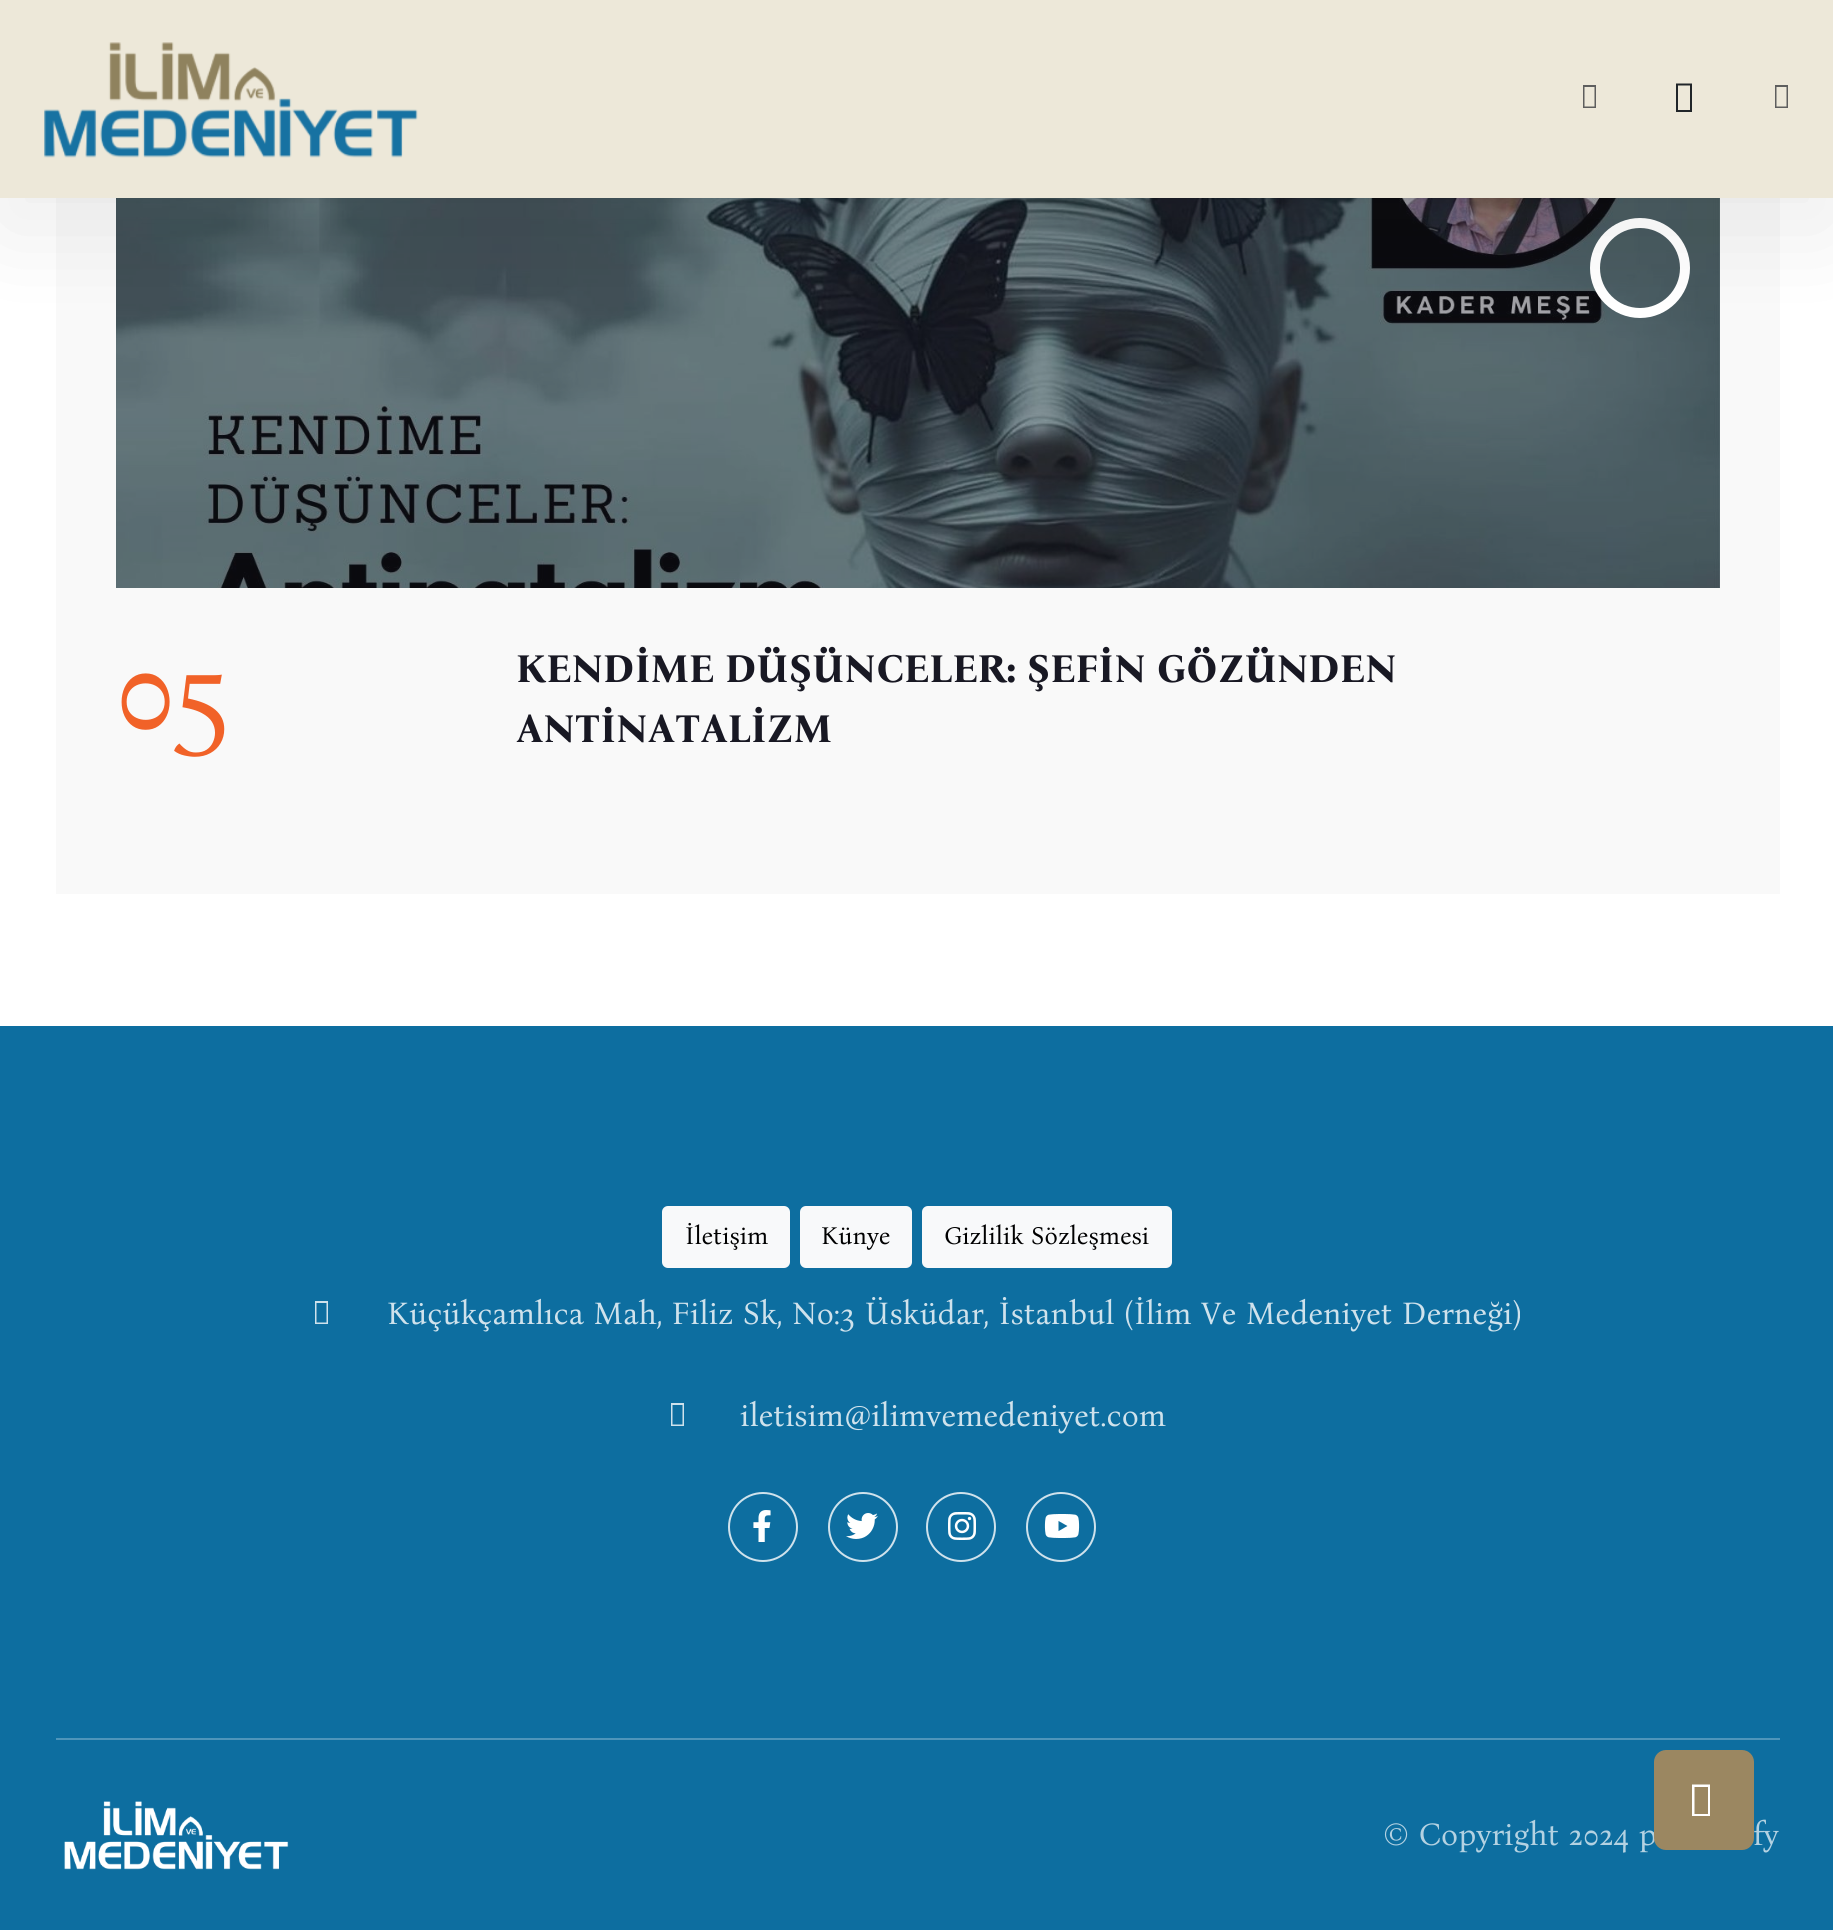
#include <cairo.h>
#include <math.h>
#include <stddef.h>

typedef struct { const char *family; double size; int italic, bold; unsigned color; } style_t;
static cairo_t *ctx;

static void ink(unsigned color) {
    cairo_set_source_rgb(ctx, (color >> 16) / 255.0, (color >> 8 & 255) / 255.0, (color & 255) / 255.0);
}

static void write(double x, double y, const char *s, const style_t *st) {
    cairo_select_font_face(ctx, st->family, st->italic ? CAIRO_FONT_SLANT_ITALIC : CAIRO_FONT_SLANT_NORMAL,
        st->bold ? CAIRO_FONT_WEIGHT_BOLD : CAIRO_FONT_WEIGHT_NORMAL);
    cairo_set_font_size(ctx, st->size);
    ink(st->color);
    cairo_move_to(ctx, x, y);
    cairo_show_text(ctx, s);
}

static void block(double x, double y, double w, double h, unsigned color) {
    ink(color);
    cairo_rectangle(ctx, x, y, w, h);
    cairo_fill(ctx);
}

static void round_path(double x, double y, double w, double h, double r) {
    cairo_new_sub_path(ctx);
    cairo_arc(ctx, x + w - r, y + h - r, r, 0, M_PI / 2);
    cairo_arc(ctx, x + r, y + h - r, r, M_PI / 2, M_PI);
    cairo_arc(ctx, x + r, y + r, r, M_PI, 1.5 * M_PI);
    cairo_arc(ctx, x + w - r, y + r, r, 1.5 * M_PI, 2 * M_PI);
    cairo_close_path(ctx);
}

static void blur_box(double x, double y, double w, double h, double r, double blur, double alpha) {
    cairo_push_group_with_content(ctx, CAIRO_CONTENT_ALPHA);
    cairo_set_operator(ctx, CAIRO_OPERATOR_SOURCE);
    for (int i = 15; i >= -15 && fmin(w, h) + blur * i / 3 > 0; i -= 2) {
        double e = blur * i / 6;
        cairo_set_source_rgba(ctx, 0, 0, 0, alpha * erfc((i - 1) / 8.5) / 2);
        round_path(x - e, y - e, w + 2 * e, h + 2 * e, fmax(0, fmin(r + e + blur * .6, fmin(w, h) / 2 + e)));
        cairo_fill(ctx);
    }
    cairo_pattern_t *soft = cairo_pop_group(ctx);
    cairo_mask(ctx, soft);
    cairo_pattern_destroy(soft);
}

static void paste(const char *path, double x, double y, double w, double h) {
    cairo_surface_t *image = cairo_image_surface_create_from_png(path);
    cairo_save(ctx);
    cairo_set_source_surface(ctx, image, x, y);
    cairo_rectangle(ctx, x, y, w, h);
    cairo_fill(ctx);
    cairo_restore(ctx);
    cairo_surface_destroy(image);
}

static const style_t s1 = {"Bona Nova", 120, 0, 0, 0xf16228};
static const style_t s2 = {"Bona Nova", 40, 0, 1, 0x181823};
static const style_t s3 = {"Bona Nova", 25, 0, 0, 0x000000};
static const style_t s4 = {"Bona Nova", 32, 0, 0, 0xcfe2ec};
static const style_t s5 = {"Bona Nova", 32, 0, 0, 0xb4d2e2};

int main(void) {
    cairo_surface_t *surface = cairo_image_surface_create(CAIRO_FORMAT_RGB24, 1833, 1930);
    ctx = cairo_create(surface);
    cairo_font_options_t *options = cairo_font_options_create();
    cairo_font_options_set_hint_metrics(options, CAIRO_HINT_METRICS_OFF);
    cairo_font_options_set_hint_style(options, CAIRO_HINT_STYLE_NONE);
    cairo_set_font_options(ctx, options);
    cairo_set_miter_limit(ctx, 4);
    ink(0xffffff);
    cairo_paint(ctx);
    block(56, 198, 1724, 696, 0xf9f9f9);
    paste("pic2.png", 116, 198, 1604, 390);
    cairo_arc(ctx, 1640, 268, 45, 0, 2 * M_PI);
    ink(0xffffff);
    cairo_set_line_width(ctx, 10);
    cairo_stroke(ctx);
    ink(0x0b0b0b);
    blur_box(0, 30, 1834, 198, 0, 50, 0.08);
    block(0, 0, 1833, 198, 0xede8d9);
    paste("pic1.png", 44, 42, 374, 116);
    ink(0x5e5e5e);
    cairo_new_path(ctx);
    cairo_move_to(ctx, 1583, 108);
    cairo_line_to(ctx, 1583, 85);
    cairo_line_to(ctx, 1596, 85);
    cairo_line_to(ctx, 1596, 108);
    cairo_close_path(ctx);
    cairo_move_to(ctx, 1584.5, 106.5);
    cairo_line_to(ctx, 1594.5, 106.5);
    cairo_line_to(ctx, 1594.5, 87);
    cairo_line_to(ctx, 1584.5, 87);
    cairo_close_path(ctx);
    cairo_fill(ctx);
    ink(0x212529);
    cairo_new_path(ctx);
    cairo_move_to(ctx, 1676, 112);
    cairo_line_to(ctx, 1676, 83.5);
    cairo_line_to(ctx, 1692, 83.5);
    cairo_line_to(ctx, 1692, 112);
    cairo_close_path(ctx);
    cairo_move_to(ctx, 1678, 110);
    cairo_line_to(ctx, 1690, 110);
    cairo_line_to(ctx, 1690, 85.5);
    cairo_line_to(ctx, 1678, 85.5);
    cairo_close_path(ctx);
    cairo_fill(ctx);
    ink(0x5e5e5e);
    cairo_new_path(ctx);
    cairo_move_to(ctx, 1775, 108);
    cairo_line_to(ctx, 1775, 85);
    cairo_line_to(ctx, 1788, 85);
    cairo_line_to(ctx, 1788, 108);
    cairo_close_path(ctx);
    cairo_move_to(ctx, 1776.5, 106.5);
    cairo_line_to(ctx, 1786.5, 106.5);
    cairo_line_to(ctx, 1786.5, 87);
    cairo_line_to(ctx, 1776.5, 87);
    cairo_close_path(ctx);
    cairo_fill(ctx);
    write(115, 728, "05", &s1);
    write(516, 682, "KENDİME DÜŞÜNCELER: ŞEFİN GÖZÜNDEN", &s2);
    write(516, 742, "ANTİNATALİZM", &s2);
    block(0, 1026, 1833, 904, 0x0d6ea0);
    ink(0xf8f9fa);
    round_path(663, 1207, 126, 60, 5);
    cairo_fill_preserve(ctx);
    cairo_set_line_width(ctx, 2);
    cairo_stroke(ctx);
    write(685, 1244, "İletişim", &s3);
    ink(0xf8f9fa);
    round_path(801, 1207, 110, 60, 5);
    cairo_fill_preserve(ctx);
    cairo_stroke(ctx);
    write(821, 1244, "Künye", &s3);
    ink(0xf8f9fa);
    round_path(923, 1207, 248, 60, 5);
    cairo_fill_preserve(ctx);
    cairo_stroke(ctx);
    write(944, 1244, "Gizlilik Sözleşmesi", &s3);
    ink(0xcfe2ec);
    cairo_new_path(ctx);
    cairo_move_to(ctx, 315, 1324);
    cairo_line_to(ctx, 315, 1301);
    cairo_line_to(ctx, 328, 1301);
    cairo_line_to(ctx, 328, 1324);
    cairo_close_path(ctx);
    cairo_move_to(ctx, 316.5, 1322.5);
    cairo_line_to(ctx, 326.5, 1322.5);
    cairo_line_to(ctx, 326.5, 1303);
    cairo_line_to(ctx, 316.5, 1303);
    cairo_close_path(ctx);
    cairo_fill(ctx);
    write(387, 1324, "Küçükçamlıca Mah, Filiz Sk, No:3 Üsküdar, İstanbul (İlim Ve Medeniyet Derneği)", &s4);
    cairo_new_path(ctx);
    cairo_move_to(ctx, 671, 1426);
    cairo_line_to(ctx, 671, 1403);
    cairo_line_to(ctx, 684, 1403);
    cairo_line_to(ctx, 684, 1426);
    cairo_close_path(ctx);
    cairo_move_to(ctx, 672.5, 1424.5);
    cairo_line_to(ctx, 682.5, 1424.5);
    cairo_line_to(ctx, 682.5, 1405);
    cairo_line_to(ctx, 672.5, 1405);
    cairo_close_path(ctx);
    cairo_fill(ctx);
    write(740, 1426, "iletisim@ilimvemedeniyet.com", &s4);
    cairo_new_path(ctx);
    cairo_arc(ctx, 763, 1527, 34, 0, 2 * M_PI);
    cairo_stroke(ctx);
    paste("pic3.png", 753, 1510, 18, 32);
    cairo_arc(ctx, 863, 1527, 34, 0, 2 * M_PI);
    cairo_stroke(ctx);
    paste("pic4.png", 846, 1513, 32, 26);
    cairo_arc(ctx, 961, 1527, 34, 0, 2 * M_PI);
    cairo_stroke(ctx);
    paste("pic5.png", 948, 1512, 28, 28);
    cairo_arc(ctx, 1061, 1527, 34, 0, 2 * M_PI);
    cairo_stroke(ctx);
    paste("pic6.png", 1044, 1514, 36, 24);
    block(56, 1738, 1724, 2, 0x4e95ba);
    paste("pic7.png", 64, 1801, 225, 69);
    write(1383, 1845, "© Copyright 2024 p", &s5);
    write(1753, 1845, "fy", &s5);
    ink(0x9b8761);
    round_path(1654, 1750, 100, 100, 12);
    cairo_fill(ctx);
    ink(0xffffff);
    cairo_new_path(ctx);
    cairo_move_to(ctx, 1692, 1816);
    cairo_line_to(ctx, 1692, 1784.5);
    cairo_line_to(ctx, 1710, 1784.5);
    cairo_line_to(ctx, 1710, 1816);
    cairo_close_path(ctx);
    cairo_move_to(ctx, 1694.5, 1814);
    cairo_line_to(ctx, 1708, 1814);
    cairo_line_to(ctx, 1708, 1787);
    cairo_line_to(ctx, 1694.5, 1787);
    cairo_close_path(ctx);
    cairo_fill(ctx);
    cairo_surface_write_to_png(surface, "screenshot.png");
    cairo_font_options_destroy(options);
    cairo_destroy(ctx);
    cairo_surface_destroy(surface);
    return 0;
}
